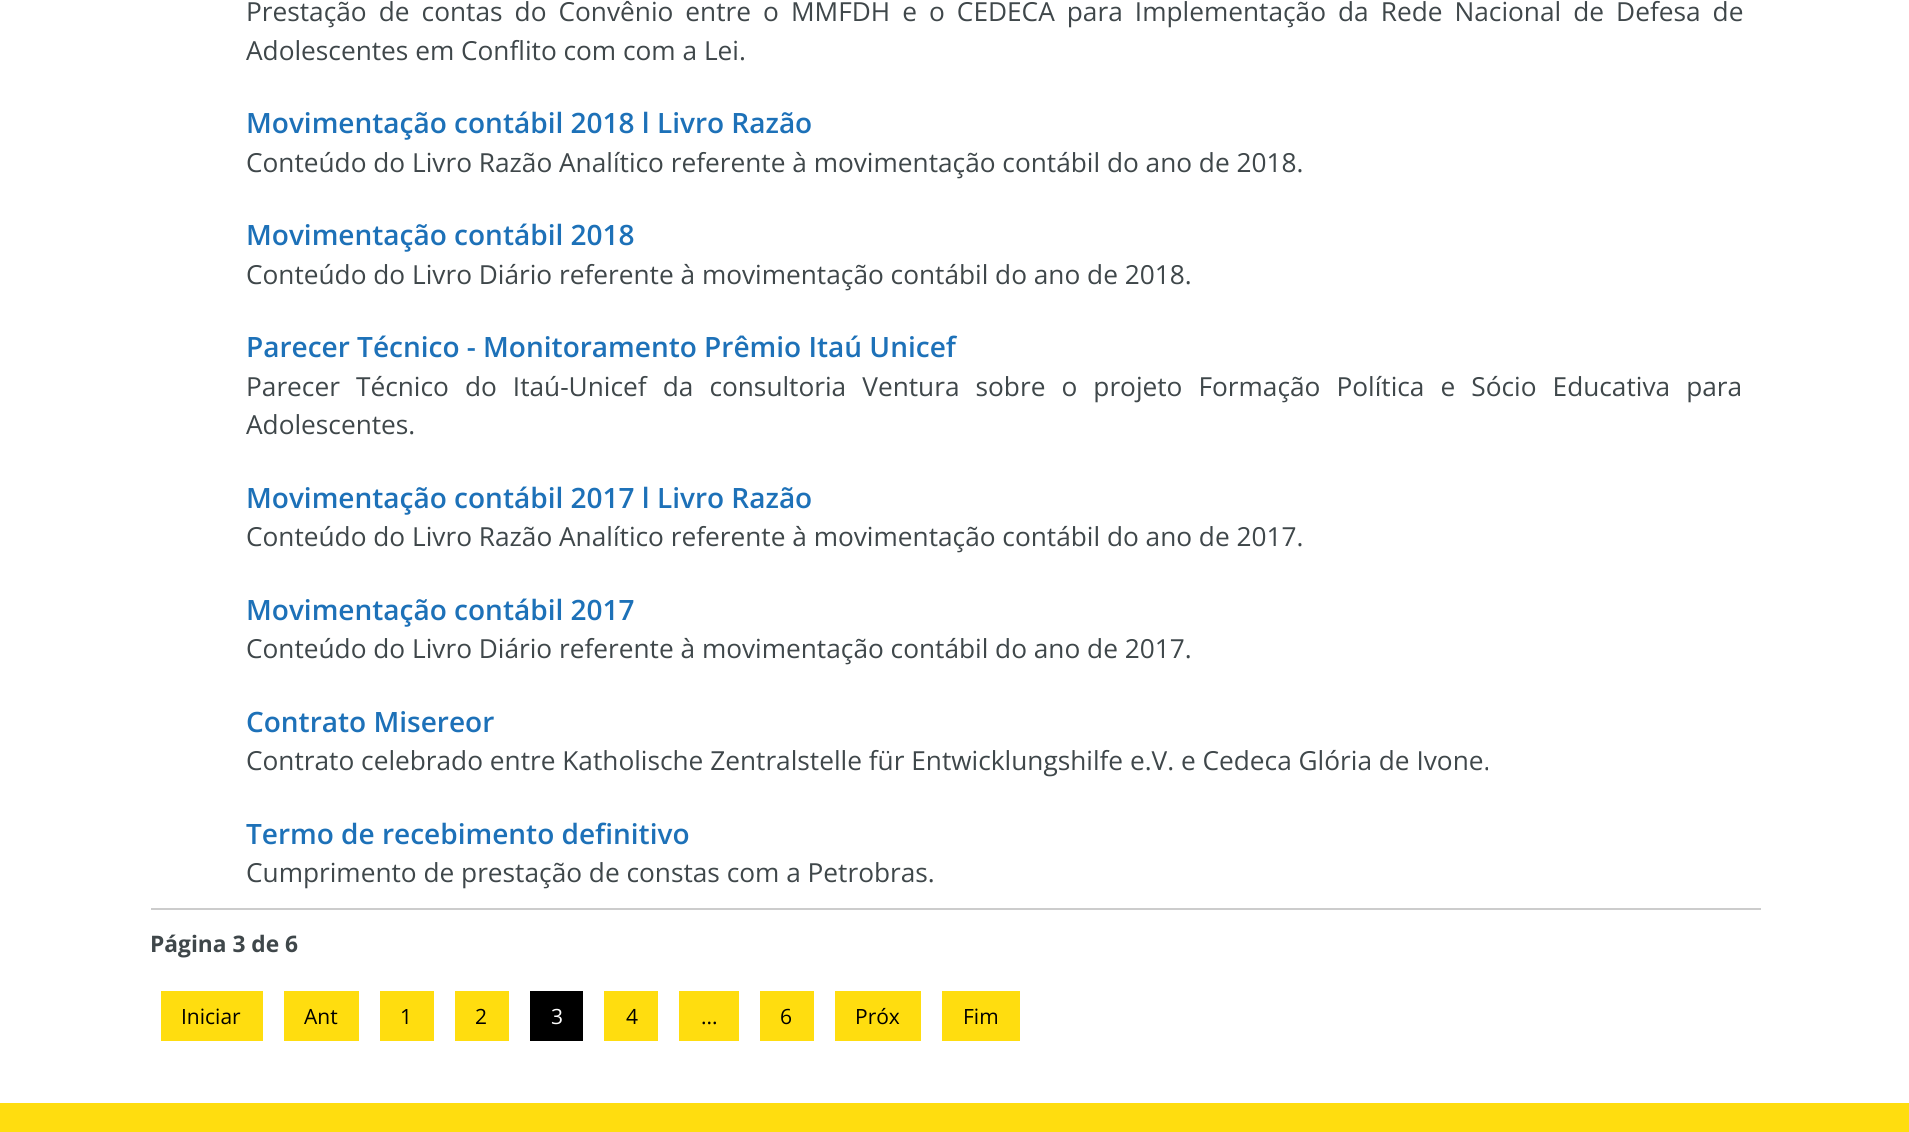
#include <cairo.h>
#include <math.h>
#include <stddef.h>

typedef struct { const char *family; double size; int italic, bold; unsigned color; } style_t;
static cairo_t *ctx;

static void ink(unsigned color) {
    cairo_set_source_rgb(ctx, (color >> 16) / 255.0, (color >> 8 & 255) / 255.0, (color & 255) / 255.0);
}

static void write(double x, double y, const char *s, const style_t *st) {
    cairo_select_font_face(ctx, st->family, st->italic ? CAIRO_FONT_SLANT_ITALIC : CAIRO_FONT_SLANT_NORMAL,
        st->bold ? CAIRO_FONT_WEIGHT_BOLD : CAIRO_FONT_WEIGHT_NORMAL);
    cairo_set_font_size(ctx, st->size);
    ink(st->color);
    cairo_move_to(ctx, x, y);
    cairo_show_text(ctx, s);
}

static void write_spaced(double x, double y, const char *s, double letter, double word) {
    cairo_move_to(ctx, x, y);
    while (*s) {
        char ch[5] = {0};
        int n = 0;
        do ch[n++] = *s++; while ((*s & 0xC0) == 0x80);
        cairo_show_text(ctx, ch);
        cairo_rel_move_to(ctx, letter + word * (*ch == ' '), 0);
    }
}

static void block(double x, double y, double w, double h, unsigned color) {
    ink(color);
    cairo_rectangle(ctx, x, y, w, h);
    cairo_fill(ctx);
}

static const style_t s1 = {"Open Sans", 26.25, 0, 0, 0x3f474a};
static const style_t s2 = {"Open Sans SemiBold", 28, 0, 0, 0x1d71b8};
static const style_t s3 = {"Open Sans", 22.75, 0, 1, 0x3f474a};
static const style_t s4 = {"Open Sans", 21, 0, 0, 0x000000};
static const style_t s5 = {"Open Sans", 21, 0, 0, 0xffffff};

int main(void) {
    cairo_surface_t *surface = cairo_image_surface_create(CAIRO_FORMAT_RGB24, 1909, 1132);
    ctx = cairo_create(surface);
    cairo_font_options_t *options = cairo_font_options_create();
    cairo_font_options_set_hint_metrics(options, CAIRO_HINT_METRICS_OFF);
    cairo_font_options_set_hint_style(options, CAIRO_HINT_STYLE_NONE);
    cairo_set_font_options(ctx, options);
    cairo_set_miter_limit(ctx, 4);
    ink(0xffffff);
    cairo_paint(ctx);
    cairo_select_font_face(ctx, "Open Sans", CAIRO_FONT_SLANT_NORMAL, CAIRO_FONT_WEIGHT_NORMAL);
    cairo_set_font_size(ctx, 26.25);
    ink(0x3f474a);
    write_spaced(246, 21, "Prestação de contas do Convênio entre o MMFDH e o CEDECA para Implementação da Rede Nacional de Defesa de", 0, 5.25);
    write(246, 60, "Adolescentes em Conflito com com a Lei.", &s1);
    write(246, 133, "Movimentação contábil 2018 l Livro Razão", &s2);
    write(246, 172, "Conteúdo do Livro Razão Analítico referente à movimentação contábil do ano de 2018.", &s1);
    write(246, 245, "Movimentação contábil 2018", &s2);
    write(246, 284, "Conteúdo do Livro Diário referente à movimentação contábil do ano de 2018.", &s1);
    write(246, 357, "Parecer Técnico - Monitoramento Prêmio Itaú Unicef", &s2);
    cairo_select_font_face(ctx, "Open Sans", CAIRO_FONT_SLANT_NORMAL, CAIRO_FONT_WEIGHT_NORMAL);
    cairo_set_font_size(ctx, 26.25);
    ink(0x3f474a);
    write_spaced(246, 396, "Parecer Técnico do Itaú-Unicef da consultoria Ventura sobre o projeto Formação Política e Sócio Educativa para", 0, 9.25);
    write(246, 434, "Adolescentes.", &s1);
    write(246, 508, "Movimentação contábil 2017 l Livro Razão", &s2);
    write(246, 546, "Conteúdo do Livro Razão Analítico referente à movimentação contábil do ano de 2017.", &s1);
    write(246, 620, "Movimentação contábil 2017", &s2);
    write(246, 658, "Conteúdo do Livro Diário referente à movimentação contábil do ano de 2017.", &s1);
    write(246, 732, "Contrato Misereor", &s2);
    write(246, 770, "Contrato celebrado entre Katholische Zentralstelle für Entwicklungshilfe e.V. e Cedeca Glória de Ivone.", &s1);
    write(246, 844, "Termo de recebimento definitivo", &s2);
    write(246, 882, "Cumprimento de prestação de constas com a Petrobras.", &s1);
    block(151, 908, 1610, 2, 0xcccccc);
    write(150, 952, "Página 3 de 6", &s3);
    block(161, 991, 102, 50, 0xffdd0f);
    write(181, 1024, "Iniciar", &s4);
    block(284, 991, 75, 50, 0xffdd0f);
    write(304, 1024, "Ant", &s4);
    block(380, 991, 54, 50, 0xffdd0f);
    write(400, 1024, "1", &s4);
    block(455, 991, 54, 50, 0xffdd0f);
    write(475, 1024, "2", &s4);
    block(530, 991, 53, 50, 0x000000);
    write(551, 1024, "3", &s5);
    block(604, 991, 54, 50, 0xffdd0f);
    write(626, 1024, "4", &s4);
    block(679, 991, 60, 50, 0xffdd0f);
    write(701, 1024, "...", &s4);
    block(760, 991, 54, 50, 0xffdd0f);
    write(780, 1024, "6", &s4);
    block(835, 991, 86, 50, 0xffdd0f);
    write(855, 1024, "Próx", &s4);
    block(942, 991, 78, 50, 0xffdd0f);
    write(963, 1024, "Fim", &s4);
    block(0, 1103, 1909, 29, 0xffdd0f);
    cairo_surface_write_to_png(surface, "screenshot.png");
    cairo_font_options_destroy(options);
    cairo_destroy(ctx);
    cairo_surface_destroy(surface);
    return 0;
}
